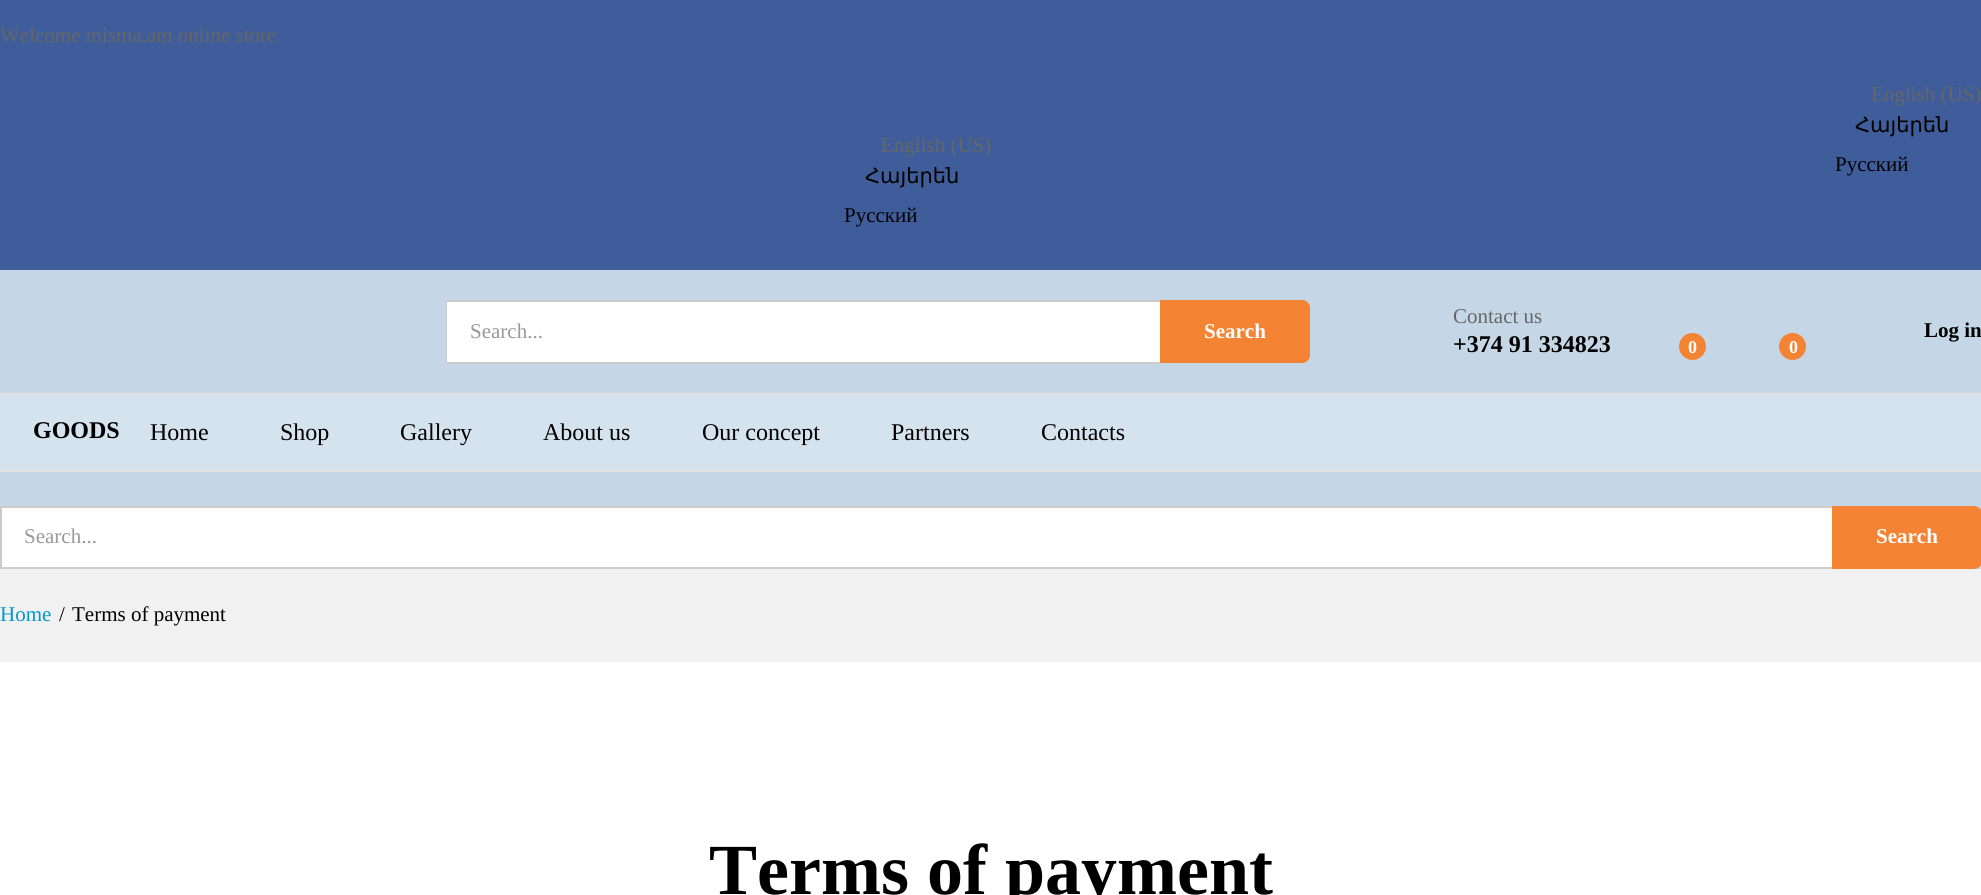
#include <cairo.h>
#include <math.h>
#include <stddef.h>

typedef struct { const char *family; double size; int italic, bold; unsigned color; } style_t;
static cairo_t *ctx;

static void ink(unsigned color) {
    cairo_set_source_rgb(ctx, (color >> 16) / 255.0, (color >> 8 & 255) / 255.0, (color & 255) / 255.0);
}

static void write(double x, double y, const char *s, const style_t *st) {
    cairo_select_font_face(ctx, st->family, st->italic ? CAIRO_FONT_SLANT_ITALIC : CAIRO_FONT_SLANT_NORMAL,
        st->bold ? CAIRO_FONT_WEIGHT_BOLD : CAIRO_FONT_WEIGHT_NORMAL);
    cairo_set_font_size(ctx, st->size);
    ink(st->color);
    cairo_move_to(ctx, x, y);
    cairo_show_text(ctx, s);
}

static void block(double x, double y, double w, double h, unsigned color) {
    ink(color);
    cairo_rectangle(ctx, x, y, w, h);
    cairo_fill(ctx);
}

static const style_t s1 = {"Liberation Serif", 21, 0, 0, 0x666666};
static const style_t s2 = {"DejaVu Sans", 21, 0, 0, 0x000000};
static const style_t s3 = {"Liberation Serif", 21, 0, 0, 0x000000};
static const style_t s4 = {"Liberation Serif", 21, 0, 0, 0x999999};
static const style_t s5 = {"Liberation Serif", 21, 0, 1, 0xffffff};
static const style_t s6 = {"Liberation Serif", 24, 0, 1, 0x000000};
static const style_t s7 = {"Liberation Serif", 21, 0, 1, 0x000000};
static const style_t s8 = {"Liberation Serif", 18, 0, 1, 0xffffff};
static const style_t s9 = {"Liberation Serif", 24, 0, 0, 0x000000};
static const style_t s10 = {"Liberation Serif", 21, 0, 0, 0x0099cc};
static const style_t s11 = {"Liberation Serif", 72, 0, 1, 0x000000};

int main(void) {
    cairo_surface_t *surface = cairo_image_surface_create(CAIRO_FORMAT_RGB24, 1981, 895);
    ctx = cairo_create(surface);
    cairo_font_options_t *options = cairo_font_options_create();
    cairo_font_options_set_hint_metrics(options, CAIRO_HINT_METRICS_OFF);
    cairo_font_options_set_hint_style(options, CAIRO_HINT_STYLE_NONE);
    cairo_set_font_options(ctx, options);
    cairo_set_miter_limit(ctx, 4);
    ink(0xffffff);
    cairo_paint(ctx);
    block(0, 0, 1981, 270, 0x3f5d9a);
    write(0, 42, "Welcome misma.am online store", &s1);
    write(881, 152, "English (US)", &s1);
    write(865, 183, "Հայերեն", &s2);
    write(844, 222, "Русский", &s3);
    write(1871, 101, "English (US)", &s1);
    write(1855, 132, "Հայերեն", &s2);
    write(1835, 171, "Русский", &s3);
    block(0, 270, 1981, 299, 0xc5d7e6);
    block(446, 300, 1, 63, 0xcccccc);
    block(447, 302, 713, 60, 0xffffff);
    block(447, 300, 713, 2, 0xcccccc);
    block(447, 362, 713, 2, 0xcccccc);
    write(470, 338, "Search...", &s4);
    ink(0xf58334);
    cairo_new_path(ctx);
    cairo_move_to(ctx, 1160, 300);
    cairo_line_to(ctx, 1302, 300);
    cairo_curve_to(ctx, 1306.5, 300, 1310, 303.5, 1310, 308);
    cairo_line_to(ctx, 1310, 355);
    cairo_curve_to(ctx, 1310, 359.5, 1306.5, 363, 1302, 363);
    cairo_line_to(ctx, 1160, 363);
    cairo_close_path(ctx);
    cairo_fill(ctx);
    write(1204, 338, "Search", &s5);
    write(1453, 323, "Contact us", &s1);
    write(1453, 352, "+374 91 334823", &s6);
    write(1924, 337, "Log in", &s7);
    ink(0xf58334);
    cairo_new_path(ctx);
    cairo_arc(ctx, 1692.5, 346.5, 13.5, 0, 2 * M_PI);
    cairo_fill(ctx);
    write(1688, 353, "0", &s8);
    ink(0xf58334);
    cairo_new_path(ctx);
    cairo_arc(ctx, 1792.5, 346.5, 13.5, 0, 2 * M_PI);
    cairo_fill(ctx);
    write(1789, 353, "0", &s8);
    block(0, 395, 1981, 75, 0xd5e3ef);
    block(0, 393, 1981, 2, 0xe1e1e1);
    block(0, 470, 1981, 2, 0xe1e1e1);
    write(33, 438, "GOODS", &s6);
    write(150, 440, "Home", &s9);
    write(280, 440, "Shop", &s9);
    write(400, 440, "Gallery", &s9);
    write(543, 440, "About us", &s9);
    write(702, 440, "Our concept", &s9);
    write(891, 440, "Partners", &s9);
    write(1041, 440, "Contacts", &s9);
    block(0, 506, 2, 63, 0xcccccc);
    block(2, 508, 1830, 59, 0xffffff);
    block(2, 506, 1830, 2, 0xcccccc);
    block(2, 567, 1830, 2, 0xcccccc);
    write(24, 543, "Search...", &s4);
    ink(0xf58334);
    cairo_new_path(ctx);
    cairo_move_to(ctx, 1832, 506);
    cairo_line_to(ctx, 1974, 506);
    cairo_curve_to(ctx, 1978.5, 506, 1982, 509.5, 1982, 514);
    cairo_line_to(ctx, 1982, 561);
    cairo_curve_to(ctx, 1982, 565.5, 1978.5, 569, 1974, 569);
    cairo_line_to(ctx, 1832, 569);
    cairo_close_path(ctx);
    cairo_fill(ctx);
    write(1876, 543, "Search", &s5);
    block(0, 569, 1981, 93, 0xf1f1f1);
    write(0, 621, "Home", &s10);
    write(59, 621, "/", &s3);
    write(72, 621, "Terms of payment", &s3);
    write(709, 894, "Terms of payment", &s11);
    cairo_surface_write_to_png(surface, "screenshot.png");
    cairo_font_options_destroy(options);
    cairo_destroy(ctx);
    cairo_surface_destroy(surface);
    return 0;
}
